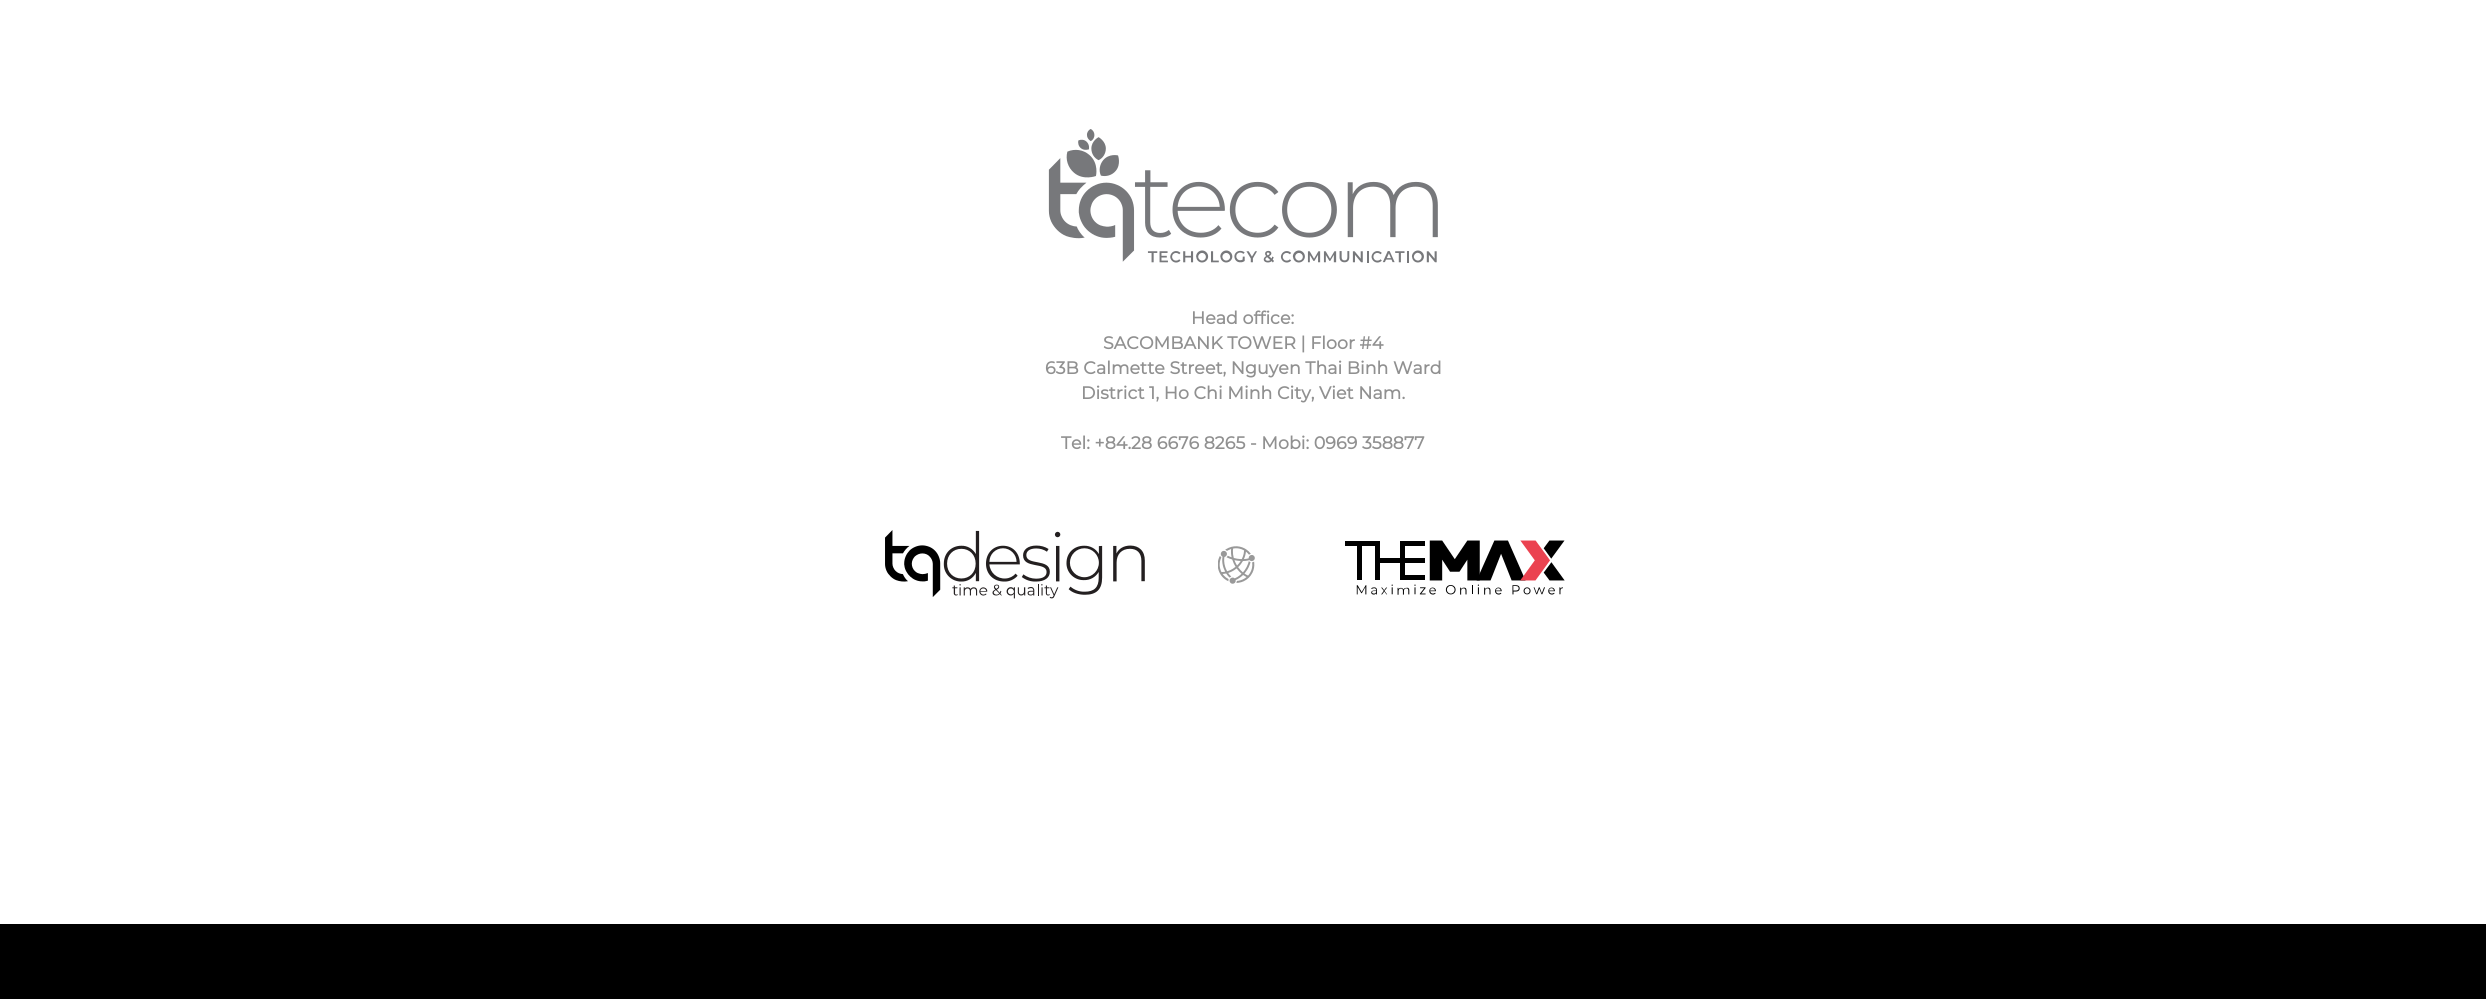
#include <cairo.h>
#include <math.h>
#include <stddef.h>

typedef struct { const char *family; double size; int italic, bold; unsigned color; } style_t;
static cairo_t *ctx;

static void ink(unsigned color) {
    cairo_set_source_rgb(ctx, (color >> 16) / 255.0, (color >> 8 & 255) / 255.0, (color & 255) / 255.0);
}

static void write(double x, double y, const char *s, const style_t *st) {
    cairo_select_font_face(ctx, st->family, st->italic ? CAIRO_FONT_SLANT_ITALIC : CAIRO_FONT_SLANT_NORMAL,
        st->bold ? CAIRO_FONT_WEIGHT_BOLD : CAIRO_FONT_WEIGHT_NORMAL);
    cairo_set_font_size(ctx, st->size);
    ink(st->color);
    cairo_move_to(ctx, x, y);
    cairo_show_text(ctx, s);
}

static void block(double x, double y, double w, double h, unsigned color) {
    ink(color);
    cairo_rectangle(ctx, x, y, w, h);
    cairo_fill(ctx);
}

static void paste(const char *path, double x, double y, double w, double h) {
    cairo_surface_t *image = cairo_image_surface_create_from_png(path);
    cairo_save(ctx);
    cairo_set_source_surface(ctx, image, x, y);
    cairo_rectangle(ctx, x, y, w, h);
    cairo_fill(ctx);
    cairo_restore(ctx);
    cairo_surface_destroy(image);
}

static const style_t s1 = {"Montserrat", 17.5, 0, 1, 0x909090};

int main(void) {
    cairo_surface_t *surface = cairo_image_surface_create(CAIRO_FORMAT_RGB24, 2486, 999);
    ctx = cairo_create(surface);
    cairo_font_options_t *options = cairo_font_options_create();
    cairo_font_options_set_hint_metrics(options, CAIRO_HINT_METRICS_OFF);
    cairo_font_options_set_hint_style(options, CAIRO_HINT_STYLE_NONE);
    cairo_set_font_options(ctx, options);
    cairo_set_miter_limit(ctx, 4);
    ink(0xffffff);
    cairo_paint(ctx);
    paste("pic1.png", 1048, 129, 390, 134);
    write(1191, 324, "Head office:", &s1);
    write(1103, 349, "SACOMBANK TOWER | Floor #4", &s1);
    write(1045, 374, "63B Calmette Street, Nguyen Thai Binh Ward", &s1);
    write(1081, 399, "District 1, Ho Chi Minh City, Viet Nam.", &s1);
    write(1061, 449, "Tel: +84.28 6676 8265 - Mobi: 0969 358877", &s1);
    paste("pic2.png", 885, 530, 260, 69);
    paste("pic3.png", 1218, 546, 37, 38);
    paste("pic4.png", 1345, 540, 220, 55);
    block(0, 924, 2486, 75, 0x000000);
    cairo_surface_write_to_png(surface, "screenshot.png");
    cairo_font_options_destroy(options);
    cairo_destroy(ctx);
    cairo_surface_destroy(surface);
    return 0;
}
